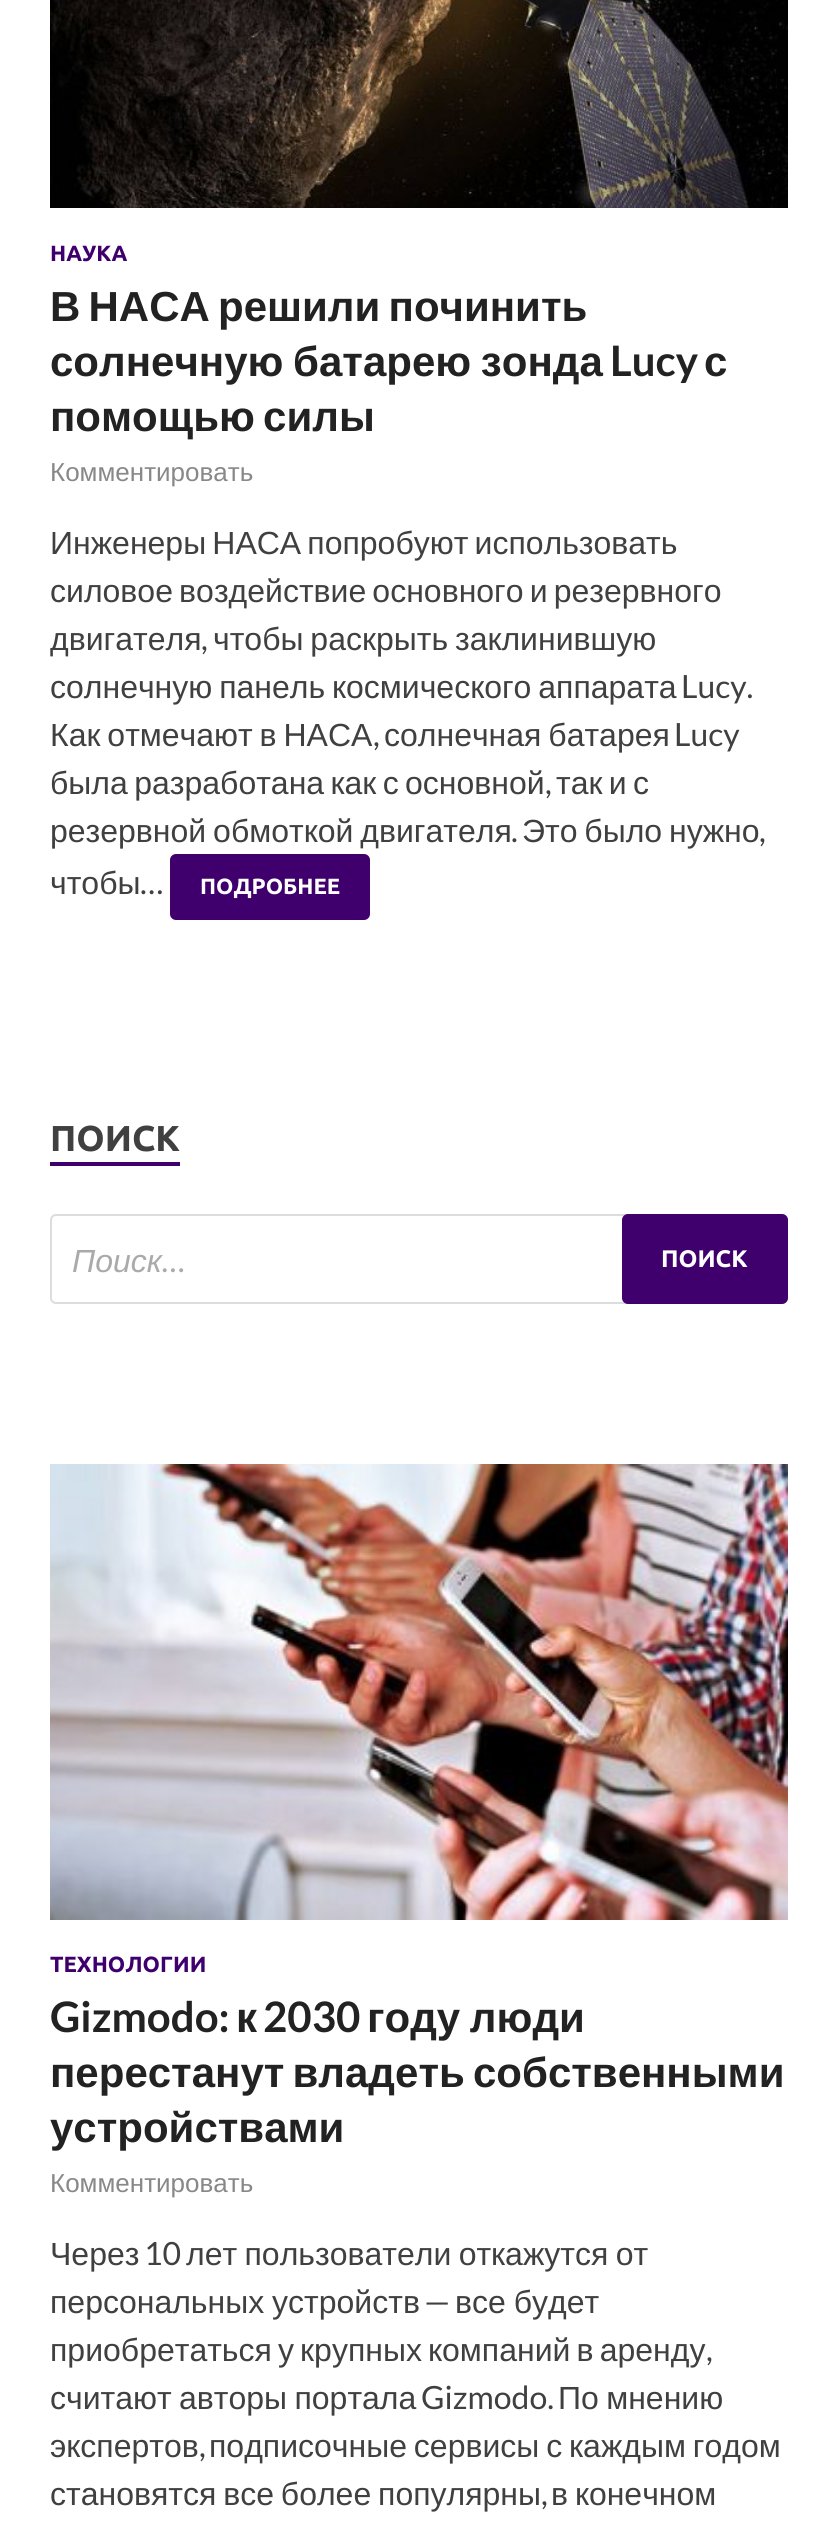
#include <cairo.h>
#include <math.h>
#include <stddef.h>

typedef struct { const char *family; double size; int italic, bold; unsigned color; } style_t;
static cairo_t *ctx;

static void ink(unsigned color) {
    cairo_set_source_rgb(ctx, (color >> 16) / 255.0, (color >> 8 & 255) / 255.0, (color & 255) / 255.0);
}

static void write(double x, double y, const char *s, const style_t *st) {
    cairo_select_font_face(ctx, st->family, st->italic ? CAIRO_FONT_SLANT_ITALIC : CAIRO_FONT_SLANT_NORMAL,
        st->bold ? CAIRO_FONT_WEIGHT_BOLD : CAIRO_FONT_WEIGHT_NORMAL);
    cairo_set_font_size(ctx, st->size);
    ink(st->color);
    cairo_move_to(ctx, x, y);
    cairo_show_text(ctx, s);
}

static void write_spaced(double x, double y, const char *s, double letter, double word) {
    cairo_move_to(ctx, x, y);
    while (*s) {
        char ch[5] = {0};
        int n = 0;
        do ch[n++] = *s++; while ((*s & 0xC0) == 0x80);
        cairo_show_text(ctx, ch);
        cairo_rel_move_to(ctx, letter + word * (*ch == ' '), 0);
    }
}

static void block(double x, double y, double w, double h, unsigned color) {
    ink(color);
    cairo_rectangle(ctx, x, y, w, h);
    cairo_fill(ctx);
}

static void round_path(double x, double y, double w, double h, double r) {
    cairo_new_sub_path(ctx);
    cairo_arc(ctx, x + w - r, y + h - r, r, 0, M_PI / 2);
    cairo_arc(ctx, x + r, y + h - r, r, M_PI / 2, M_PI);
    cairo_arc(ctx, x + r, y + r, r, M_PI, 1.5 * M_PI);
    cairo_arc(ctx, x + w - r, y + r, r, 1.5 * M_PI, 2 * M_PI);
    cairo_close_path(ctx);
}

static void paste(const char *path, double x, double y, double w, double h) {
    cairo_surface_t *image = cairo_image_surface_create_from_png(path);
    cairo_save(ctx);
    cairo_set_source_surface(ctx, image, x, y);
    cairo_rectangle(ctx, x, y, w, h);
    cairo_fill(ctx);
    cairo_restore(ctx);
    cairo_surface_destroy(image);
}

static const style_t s1 = {"Ubuntu", 22, 0, 1, 0x3f006d};
static const style_t s2 = {"Lato", 42, 0, 1, 0x222222};
static const style_t s3 = {"Liberation Sans", 42, 0, 1, 0x222222};
static const style_t s4 = {"Liberation Sans", 26, 0, 0, 0x888888};
static const style_t s5 = {"Liberation Sans", 32, 0, 0, 0x404040};
static const style_t s6 = {"Lato", 32, 0, 0, 0x404040};
static const style_t s7 = {"Ubuntu", 22, 0, 1, 0xffffff};
static const style_t s8 = {"Ubuntu", 36, 0, 1, 0x404040};
static const style_t s9 = {"Liberation Sans", 32, 1, 0, 0xaaaaaa};
static const style_t s10 = {"Lato", 32, 1, 0, 0xaaaaaa};
static const style_t s11 = {"Ubuntu", 24, 0, 1, 0xffffff};

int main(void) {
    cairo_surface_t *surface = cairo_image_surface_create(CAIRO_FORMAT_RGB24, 838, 2525);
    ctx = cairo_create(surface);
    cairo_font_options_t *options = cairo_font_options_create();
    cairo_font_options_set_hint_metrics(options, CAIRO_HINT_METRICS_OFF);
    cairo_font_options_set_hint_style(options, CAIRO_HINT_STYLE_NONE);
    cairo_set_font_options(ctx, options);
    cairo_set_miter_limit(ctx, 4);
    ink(0xffffff);
    cairo_paint(ctx);
    paste("pic1.png", 50, 0, 738, 208);
    write(50, 261, "НАУКА", &s1);
    cairo_select_font_face(ctx, "Liberation Sans", CAIRO_FONT_SLANT_NORMAL, CAIRO_FONT_WEIGHT_BOLD);
    cairo_set_font_size(ctx, 42);
    ink(0x222222);
    write_spaced(50, 321, "В НАСА решили починить", 0, -3.5);
    write_spaced(50, 376, "солнечную батарею зонда", 0, -2);
    write(610, 376, "Lucy", &s2);
    write(704, 376, "с", &s3);
    write_spaced(50, 431, "помощью силы", 0, -3.5);
    write(50, 481, "Комментировать", &s4);
    cairo_set_font_size(ctx, 32);
    ink(0x404040);
    write_spaced(50, 554, "Инженеры НАСА попробуют использовать", 0, -2.75);
    write_spaced(50, 602, "силовое воздействие основного и резервного", 0, -2.75);
    write(50, 650, "двигателя", &s5);
    write(201, 650, ",", &s6);
    cairo_select_font_face(ctx, "Liberation Sans", CAIRO_FONT_SLANT_NORMAL, CAIRO_FONT_WEIGHT_NORMAL);
    write_spaced(213, 650, "чтобы раскрыть заклинившую", 0, -2);
    write_spaced(50, 698, "солнечную панель космического аппарата", 0, -2);
    write(681, 698, "Lucy.", &s6);
    cairo_select_font_face(ctx, "Liberation Sans", CAIRO_FONT_SLANT_NORMAL, CAIRO_FONT_WEIGHT_NORMAL);
    write_spaced(50, 746, "Как отмечают в НАСА", 0, -2);
    write(373, 746, ",", &s6);
    cairo_select_font_face(ctx, "Liberation Sans", CAIRO_FONT_SLANT_NORMAL, CAIRO_FONT_WEIGHT_NORMAL);
    write_spaced(384, 746, "солнечная батарея", 0, -2);
    write(674, 746, "Lucy", &s6);
    cairo_select_font_face(ctx, "Liberation Sans", CAIRO_FONT_SLANT_NORMAL, CAIRO_FONT_WEIGHT_NORMAL);
    write_spaced(50, 794, "была разработана как с основной", 0, -2.5);
    write(545, 794, ",", &s6);
    cairo_select_font_face(ctx, "Liberation Sans", CAIRO_FONT_SLANT_NORMAL, CAIRO_FONT_WEIGHT_NORMAL);
    write_spaced(556, 794, "так и с", 0, -2.5);
    write_spaced(50, 842, "резервной обмоткой двигателя", 0, -2);
    write(511, 842, ".", &s6);
    cairo_select_font_face(ctx, "Liberation Sans", CAIRO_FONT_SLANT_NORMAL, CAIRO_FONT_WEIGHT_NORMAL);
    write_spaced(522, 842, "Это было нужно", 0, -2);
    write(759, 842, ",", &s6);
    write(50, 894, "чтобы", &s5);
    write(140, 894, "…", &s6);
    ink(0x3f006d);
    round_path(170, 854, 200, 66, 6);
    cairo_fill(ctx);
    write(200, 894, "ПОДРОБНЕЕ", &s7);
    block(50, 1162, 130, 4, 0x3f006d);
    write(50, 1151, "ПОИСК", &s8);
    round_path(51, 1215, 736, 88, 5);
    ink(0xdddddd);
    cairo_stroke(ctx);
    write(72, 1272, "Поиск", &s9);
    write(162, 1272, "…", &s10);
    ink(0x3f006d);
    round_path(622, 1214, 166, 90, 6);
    cairo_fill(ctx);
    write(661, 1267, "ПОИСК", &s11);
    paste("pic2.png", 50, 1464, 738, 456);
    write(50, 1972, "ТЕХНОЛОГИИ", &s1);
    write(50, 2032, "Gizmodo:", &s2);
    write(236, 2032, "к", &s3);
    write(263, 2032, "2030", &s2);
    cairo_select_font_face(ctx, "Liberation Sans", CAIRO_FONT_SLANT_NORMAL, CAIRO_FONT_WEIGHT_BOLD);
    write_spaced(367, 2032, "году люди", 0, -2);
    write_spaced(50, 2087, "перестанут владеть собственными", 0, -3.5);
    write(50, 2142, "устройствами", &s3);
    write(50, 2192, "Комментировать", &s4);
    write(50, 2265, "Через", &s5);
    write(144, 2265, "10", &s6);
    cairo_select_font_face(ctx, "Liberation Sans", CAIRO_FONT_SLANT_NORMAL, CAIRO_FONT_WEIGHT_NORMAL);
    write_spaced(186, 2265, "лет пользователи откажутся от", 0, -1.5);
    write_spaced(50, 2313, "персональных устройств", 0, -1);
    write(424, 2313, "—", &s6);
    cairo_select_font_face(ctx, "Liberation Sans", CAIRO_FONT_SLANT_NORMAL, CAIRO_FONT_WEIGHT_NORMAL);
    write_spaced(455, 2313, "все будет", 0, -1);
    write_spaced(50, 2361, "приобретаться у крупных компаний в аренду", 0, -2.75);
    write(706, 2361, ",", &s6);
    cairo_select_font_face(ctx, "Liberation Sans", CAIRO_FONT_SLANT_NORMAL, CAIRO_FONT_WEIGHT_NORMAL);
    write_spaced(50, 2409, "считают авторы портала", 0, -1.5);
    write(421, 2409, "Gizmodo.", &s6);
    cairo_select_font_face(ctx, "Liberation Sans", CAIRO_FONT_SLANT_NORMAL, CAIRO_FONT_WEIGHT_NORMAL);
    write_spaced(558, 2409, "По мнению", 0, -1.5);
    write(50, 2457, "экспертов", &s5);
    write(199, 2457, ",", &s6);
    cairo_select_font_face(ctx, "Liberation Sans", CAIRO_FONT_SLANT_NORMAL, CAIRO_FONT_WEIGHT_NORMAL);
    write_spaced(209, 2457, "подписочные сервисы с каждым годом", 0, -2);
    write_spaced(50, 2505, "становятся все более популярны", 0, -2);
    write(541, 2505, ",", &s6);
    cairo_select_font_face(ctx, "Liberation Sans", CAIRO_FONT_SLANT_NORMAL, CAIRO_FONT_WEIGHT_NORMAL);
    write_spaced(551, 2505, "в конечном", 0, -2);
    cairo_surface_write_to_png(surface, "screenshot.png");
    cairo_font_options_destroy(options);
    cairo_destroy(ctx);
    cairo_surface_destroy(surface);
    return 0;
}
